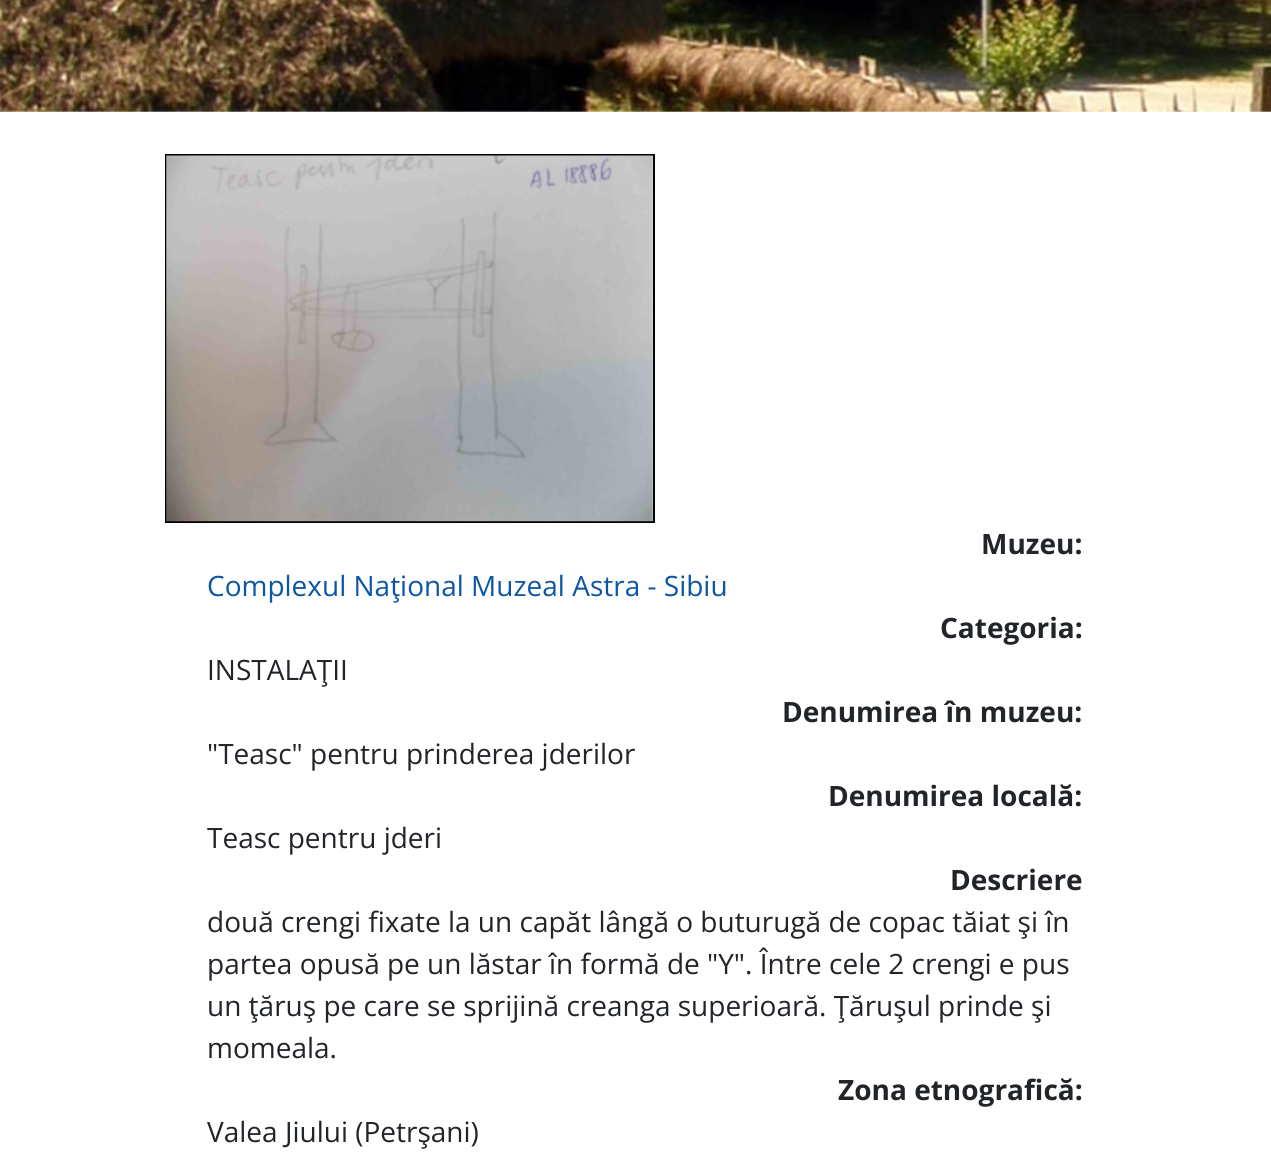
#include <cairo.h>
#include <math.h>
#include <stddef.h>

typedef struct { const char *family; double size; int italic, bold; unsigned color; } style_t;
static cairo_t *ctx;

static void ink(unsigned color) {
    cairo_set_source_rgb(ctx, (color >> 16) / 255.0, (color >> 8 & 255) / 255.0, (color & 255) / 255.0);
}

static void write(double x, double y, const char *s, const style_t *st) {
    cairo_select_font_face(ctx, st->family, st->italic ? CAIRO_FONT_SLANT_ITALIC : CAIRO_FONT_SLANT_NORMAL,
        st->bold ? CAIRO_FONT_WEIGHT_BOLD : CAIRO_FONT_WEIGHT_NORMAL);
    cairo_set_font_size(ctx, st->size);
    ink(st->color);
    cairo_move_to(ctx, x, y);
    cairo_show_text(ctx, s);
}

static void paste(const char *path, double x, double y, double w, double h) {
    cairo_surface_t *image = cairo_image_surface_create_from_png(path);
    cairo_save(ctx);
    cairo_set_source_surface(ctx, image, x, y);
    cairo_rectangle(ctx, x, y, w, h);
    cairo_fill(ctx);
    cairo_restore(ctx);
    cairo_surface_destroy(image);
}

static const style_t s1 = {"Open Sans", 28, 0, 1, 0x212529};
static const style_t s2 = {"Open Sans", 28, 0, 0, 0x0c56a6};
static const style_t s3 = {"Open Sans", 28, 0, 0, 0x212529};

int main(void) {
    cairo_surface_t *surface = cairo_image_surface_create(CAIRO_FORMAT_RGB24, 1271, 1159);
    ctx = cairo_create(surface);
    cairo_font_options_t *options = cairo_font_options_create();
    cairo_font_options_set_hint_metrics(options, CAIRO_HINT_METRICS_OFF);
    cairo_font_options_set_hint_style(options, CAIRO_HINT_STYLE_NONE);
    cairo_set_font_options(ctx, options);
    cairo_set_miter_limit(ctx, 4);
    ink(0xffffff);
    cairo_paint(ctx);
    paste("pic1.png", 0, 0, 1271, 112);
    cairo_rectangle(ctx, 166, 155, 488, 367);
    ink(0x000000);
    cairo_stroke(ctx);
    paste("pic2.png", 166, 155, 487, 367);
    write(981, 554, "Muzeu:", &s1);
    write(207, 596, "Complexul Naţional Muzeal Astra - Sibiu", &s2);
    write(940, 638, "Categoria:", &s1);
    write(207, 680, "INSTALAŢII", &s3);
    write(782, 722, "Denumirea în muzeu:", &s1);
    write(207, 764, "\"Teasc\" pentru prinderea jderilor", &s3);
    write(828, 806, "Denumirea locală:", &s1);
    write(207, 848, "Teasc pentru jderi", &s3);
    write(950, 890, "Descriere", &s1);
    write(207, 932, "două crengi fixate la un capăt lângă o buturugă de copac tăiat şi în", &s3);
    write(207, 974, "partea opusă pe un lăstar în formă de \"Y\". Între cele 2 crengi e pus", &s3);
    write(207, 1016, "un ţăruş pe care se sprijină creanga superioară. Ţăruşul prinde şi", &s3);
    write(207, 1058, "momeala.", &s3);
    write(838, 1100, "Zona etnografică:", &s1);
    write(207, 1142, "Valea Jiului (Petrşani)", &s3);
    cairo_surface_write_to_png(surface, "screenshot.png");
    cairo_font_options_destroy(options);
    cairo_destroy(ctx);
    cairo_surface_destroy(surface);
    return 0;
}
